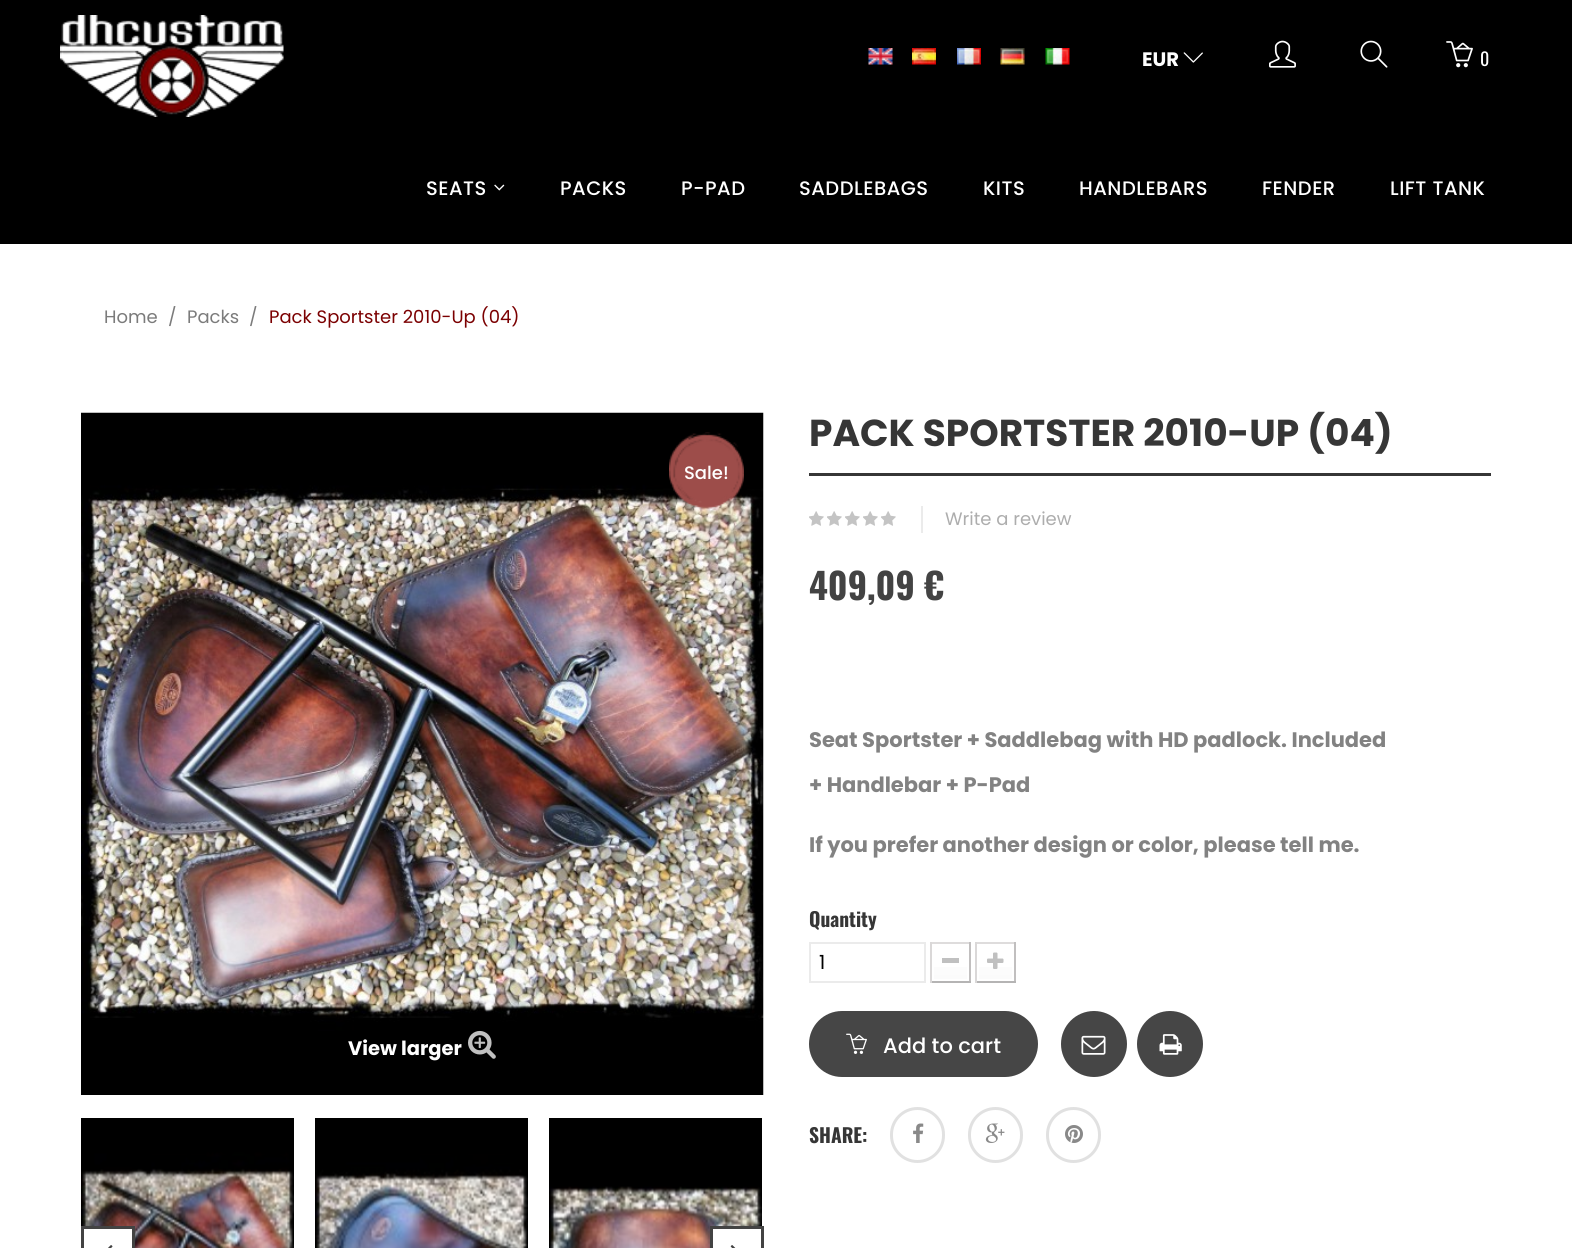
#include <cairo.h>
#include <math.h>
#include <stddef.h>

typedef struct { const char *family; double size; int italic, bold; unsigned color; } style_t;
static cairo_t *ctx;

static void ink(unsigned color) {
    cairo_set_source_rgb(ctx, (color >> 16) / 255.0, (color >> 8 & 255) / 255.0, (color & 255) / 255.0);
}

static void write(double x, double y, const char *s, const style_t *st) {
    cairo_select_font_face(ctx, st->family, st->italic ? CAIRO_FONT_SLANT_ITALIC : CAIRO_FONT_SLANT_NORMAL,
        st->bold ? CAIRO_FONT_WEIGHT_BOLD : CAIRO_FONT_WEIGHT_NORMAL);
    cairo_set_font_size(ctx, st->size);
    ink(st->color);
    cairo_move_to(ctx, x, y);
    cairo_show_text(ctx, s);
}

static void write_spaced(double x, double y, const char *s, double letter, double word) {
    cairo_move_to(ctx, x, y);
    while (*s) {
        char ch[5] = {0};
        int n = 0;
        do ch[n++] = *s++; while ((*s & 0xC0) == 0x80);
        cairo_show_text(ctx, ch);
        cairo_rel_move_to(ctx, letter + word * (*ch == ' '), 0);
    }
}

static void block(double x, double y, double w, double h, unsigned color) {
    ink(color);
    cairo_rectangle(ctx, x, y, w, h);
    cairo_fill(ctx);
}

static void round_path(double x, double y, double w, double h, double r) {
    cairo_new_sub_path(ctx);
    cairo_arc(ctx, x + w - r, y + h - r, r, 0, M_PI / 2);
    cairo_arc(ctx, x + r, y + h - r, r, M_PI / 2, M_PI);
    cairo_arc(ctx, x + r, y + r, r, M_PI, 1.5 * M_PI);
    cairo_arc(ctx, x + w - r, y + r, r, 1.5 * M_PI, 2 * M_PI);
    cairo_close_path(ctx);
}

static void paste(const char *path, double x, double y, double w, double h) {
    cairo_surface_t *image = cairo_image_surface_create_from_png(path);
    cairo_save(ctx);
    cairo_set_source_surface(ctx, image, x, y);
    cairo_rectangle(ctx, x, y, w, h);
    cairo_fill(ctx);
    cairo_restore(ctx);
    cairo_surface_destroy(image);
}

static const style_t s1 = {"Poppins", 19.5, 0, 1, 0xffffff};
static const style_t s2 = {"Oswald", 18, 0, 0, 0xffffff};
static const style_t s3 = {"Poppins", 18, 0, 0, 0x7b7b7b};
static const style_t s4 = {"Poppins", 18, 0, 0, 0x7b0001};
static const style_t s5 = {"Poppins Medium", 18, 0, 0, 0xffffff};
static const style_t s6 = {"Poppins", 37.5, 0, 1, 0x363636};
static const style_t s7 = {"Poppins", 18, 0, 0, 0xadadad};
static const style_t s8 = {"Oswald", 36, 0, 1, 0x434343};
static const style_t s9 = {"Poppins", 21, 0, 1, 0x828282};
static const style_t s10 = {"Oswald", 19.5, 0, 1, 0x363636};
static const style_t s11 = {"Poppins", 19.5, 0, 0, 0x000000};
static const style_t s12 = {"Poppins Medium", 21, 0, 0, 0xffffff};

int main(void) {
    cairo_surface_t *surface = cairo_image_surface_create(CAIRO_FORMAT_RGB24, 1572, 1248);
    ctx = cairo_create(surface);
    cairo_font_options_t *options = cairo_font_options_create();
    cairo_font_options_set_hint_metrics(options, CAIRO_HINT_METRICS_OFF);
    cairo_font_options_set_hint_style(options, CAIRO_HINT_STYLE_NONE);
    cairo_set_font_options(ctx, options);
    cairo_set_miter_limit(ctx, 4);
    cairo_pattern_t *gradient;
    ink(0xffffff);
    cairo_paint(ctx);
    block(0, 0, 1572, 244, 0x000000);
    paste("pic1.png", 60, 15, 224, 102);
    paste("pic2.png", 868, 48, 25, 17);
    paste("pic3.png", 912, 48, 24, 17);
    paste("pic4.png", 957, 48, 24, 17);
    paste("pic5.png", 1000, 48, 25, 17);
    paste("pic6.png", 1045, 48, 25, 17);
    write(1142, 66, "EUR", &s1);
    paste("pic7.png", 1183, 52, 20, 11);
    paste("pic8.png", 1269, 40, 27, 28);
    paste("pic9.png", 1360, 40, 28, 28);
    paste("pic10.png", 1446, 41, 27, 27);
    write(1480, 66, "0", &s2);
    cairo_select_font_face(ctx, "Poppins Medium", CAIRO_FONT_SLANT_NORMAL, CAIRO_FONT_WEIGHT_NORMAL);
    cairo_set_font_size(ctx, 19.5);
    write_spaced(426, 195, "SEATS", 0.5, 0);
    paste("pic11.png", 494, 184, 11, 7);
    write_spaced(560, 195, "PACKS", 0.5, 0);
    write_spaced(681, 195, "P-PAD", 0.5, 0);
    write_spaced(799, 195, "SADDLEBAGS", 0.5, 0);
    write_spaced(983, 195, "KITS", 0.5, 0);
    write_spaced(1079, 195, "HANDLEBARS", 0.5, 0);
    write_spaced(1262, 195, "FENDER", 0.5, 0);
    write_spaced(1390, 195, "LIFT TANK", 0.5, 0);
    write(104, 323, "Home", &s3);
    write(168, 323, "/", &s3);
    write(187, 323, "Packs", &s3);
    write(249, 323, "/", &s3);
    write(269, 323, "Pack Sportster 2010-Up (04)", &s4);
    block(763, 413, 1, 682, 0xfbfbfb);
    paste("pic13.png", 81, 412, 683, 683);
    paste("pic12.png", 669, 432, 75, 78);
    write(684, 479, "Sale!", &s5);
    write(348, 1055, "View larger", &s1);
    paste("pic14.png", 468, 1030, 28, 29);
    paste("pic15.png", 81, 1118, 213, 130);
    paste("pic16.png", 315, 1118, 213, 130);
    paste("pic17.png", 549, 1118, 213, 130);
    cairo_rectangle(ctx, 82.5, 1227.5, 51, 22);
    cairo_fill_preserve(ctx);
    ink(0x434343);
    cairo_set_line_width(ctx, 3);
    cairo_stroke(ctx);
    paste("pic18.png", 108, 1245, 5, 3);
    ink(0xffffff);
    cairo_rectangle(ctx, 711.5, 1227.5, 51, 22);
    cairo_fill_preserve(ctx);
    ink(0x434343);
    cairo_stroke(ctx);
    paste("pic19.png", 730, 1245, 6, 3);
    block(809, 473, 682, 3, 0x363636);
    write(809, 446, "PACK SPORTSTER 2010-UP (04)", &s6);
    paste("pic20.png", 809, 511, 15, 15);
    paste("pic20.png", 827, 511, 15, 15);
    paste("pic20.png", 845, 511, 15, 15);
    paste("pic20.png", 863, 511, 15, 15);
    paste("pic20.png", 881, 511, 15, 15);
    block(921, 506, 2, 27, 0xebebeb);
    write(945, 525, "Write a review", &s7);
    write(809, 600, "409,09 €", &s8);
    write(809, 747, "Seat Sportster + Saddlebag with HD padlock. Included", &s9);
    write(809, 792, "+ Handlebar + P-Pad", &s9);
    write(809, 852, "If you prefer another design or color, please tell me.", &s9);
    write(809, 927, "Quantity", &s10);
    cairo_rectangle(ctx, 810, 943, 115, 39);
    ink(0xebebeb);
    cairo_set_line_width(ctx, 2);
    cairo_stroke(ctx);
    write(819, 969, "1", &s11);
    block(930, 942, 41, 2, 0xdedcdc);
    block(969, 942, 2, 41, 0xc1bfbf);
    block(930, 981, 41, 2, 0xb5b4b4);
    block(930, 942, 2, 41, 0xdad8d8);
    gradient = cairo_pattern_create_linear(950, 945, 950, 980);
    cairo_pattern_add_color_stop_rgba(gradient, 0, 1, 1, 1, 1);
    cairo_pattern_add_color_stop_rgba(gradient, 1, 0.984, 0.984, 0.984, 1);
    cairo_set_source(ctx, gradient);
    cairo_pattern_destroy(gradient);
    cairo_rectangle(ctx, 934, 967, 33, 12);
    cairo_fill(ctx);
    block(942, 958, 17, 5, 0xc0c0c0);
    block(975, 942, 41, 2, 0xdedcdc);
    block(1014, 942, 2, 41, 0xc1bfbf);
    block(975, 981, 41, 2, 0xb5b4b4);
    block(975, 942, 2, 41, 0xdad8d8);
    gradient = cairo_pattern_create_linear(995, 945, 995, 980);
    cairo_pattern_add_color_stop_rgba(gradient, 0, 1, 1, 1, 1);
    cairo_pattern_add_color_stop_rgba(gradient, 1, 0.984, 0.984, 0.984, 1);
    cairo_set_source(ctx, gradient);
    cairo_pattern_destroy(gradient);
    cairo_rectangle(ctx, 979, 967, 33, 12);
    cairo_fill(ctx);
    paste("pic21.png", 987, 952, 17, 17);
    ink(0x464646);
    round_path(809, 1011, 229, 66, 33);
    cairo_fill(ctx);
    paste("pic22.png", 846, 1033, 21, 21);
    write(883, 1053, "Add to cart", &s12);
    ink(0x464646);
    cairo_new_path(ctx);
    cairo_arc(ctx, 1094, 1044, 33, 0, 2 * M_PI);
    cairo_fill(ctx);
    paste("pic23.png", 1081, 1035, 25, 20);
    cairo_arc(ctx, 1170, 1044, 33, 0, 2 * M_PI);
    cairo_fill(ctx);
    paste("pic24.png", 1159, 1034, 23, 21);
    write(809, 1143, "SHARE:", &s10);
    round_path(891.5, 1108.5, 52, 53, 26);
    ink(0xe1e1e1);
    cairo_set_line_width(ctx, 3);
    cairo_stroke(ctx);
    paste("pic25.png", 913, 1123, 11, 20);
    round_path(969.5, 1108.5, 52, 53, 26);
    cairo_stroke(ctx);
    paste("pic26.png", 985, 1123, 20, 20);
    round_path(1047.5, 1108.5, 52, 53, 26);
    cairo_stroke(ctx);
    paste("pic27.png", 1065, 1125, 18, 18);
    cairo_surface_write_to_png(surface, "screenshot.png");
    cairo_font_options_destroy(options);
    cairo_destroy(ctx);
    cairo_surface_destroy(surface);
    return 0;
}
